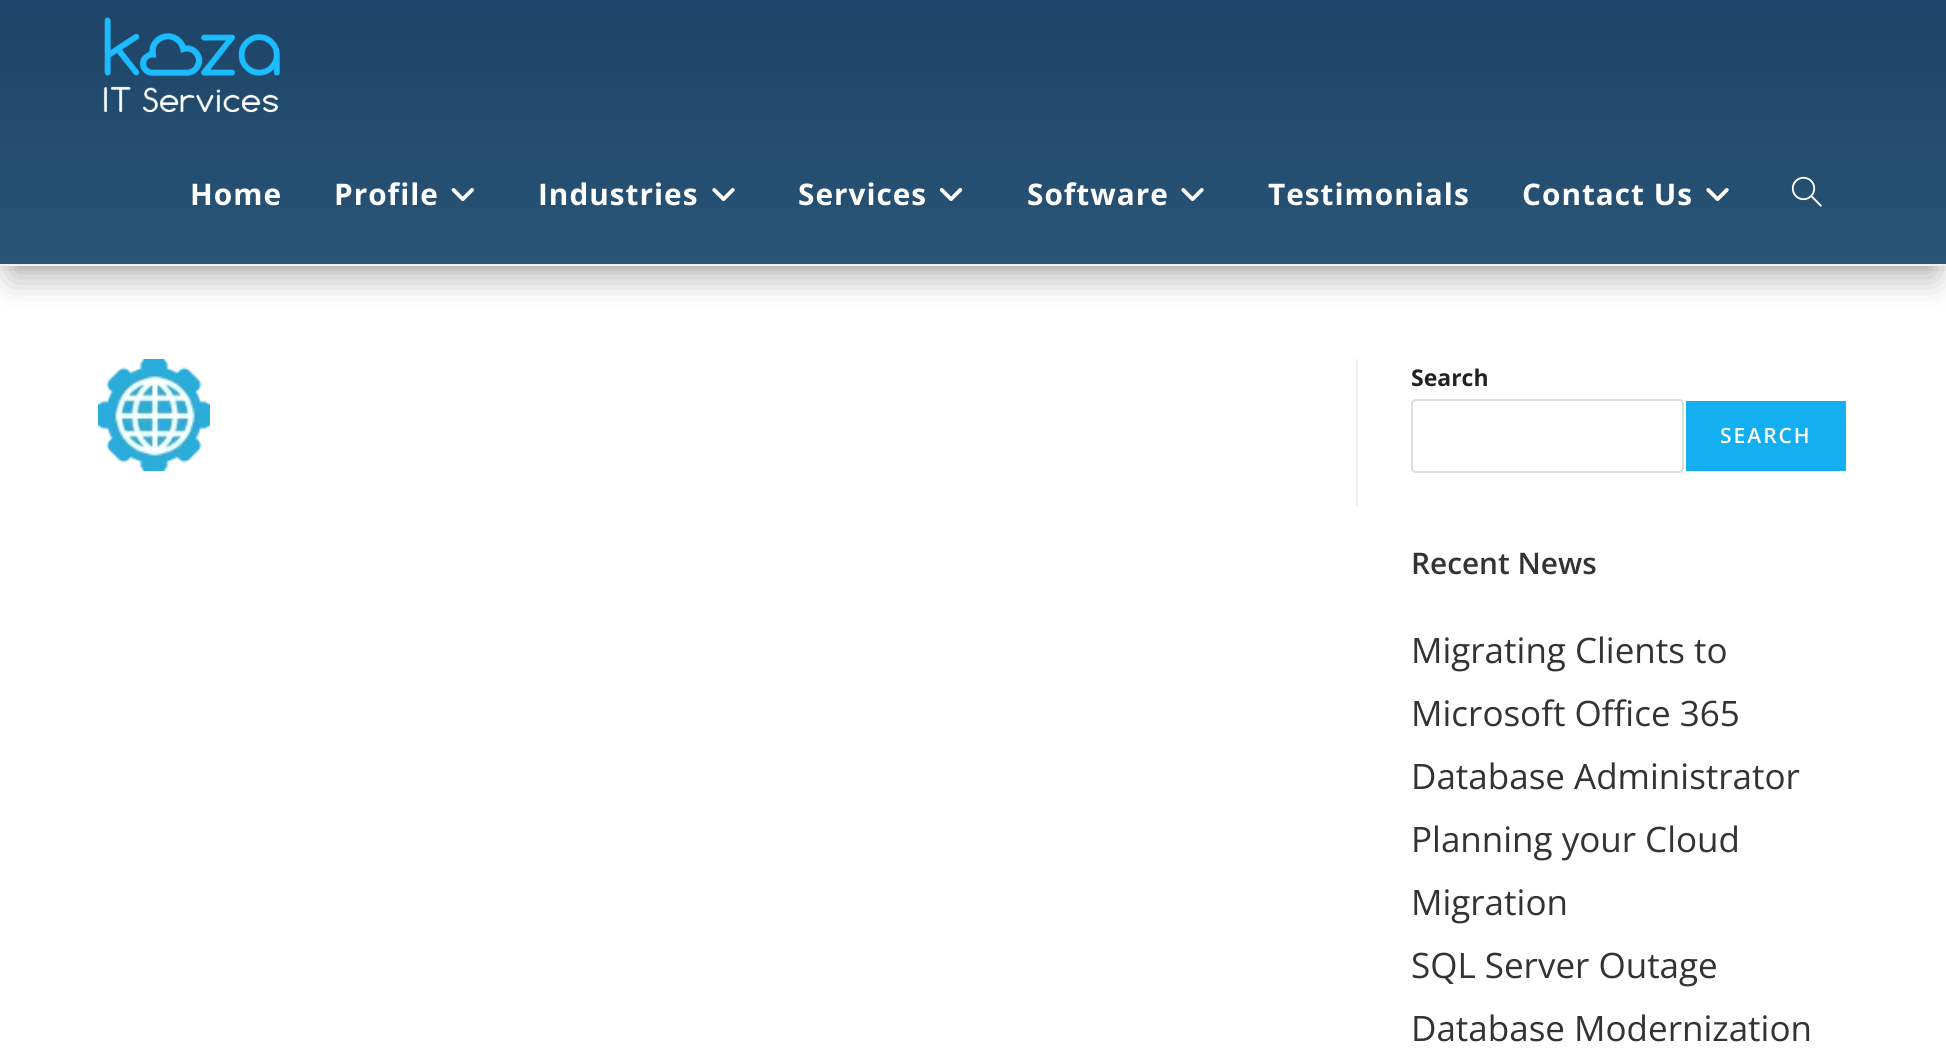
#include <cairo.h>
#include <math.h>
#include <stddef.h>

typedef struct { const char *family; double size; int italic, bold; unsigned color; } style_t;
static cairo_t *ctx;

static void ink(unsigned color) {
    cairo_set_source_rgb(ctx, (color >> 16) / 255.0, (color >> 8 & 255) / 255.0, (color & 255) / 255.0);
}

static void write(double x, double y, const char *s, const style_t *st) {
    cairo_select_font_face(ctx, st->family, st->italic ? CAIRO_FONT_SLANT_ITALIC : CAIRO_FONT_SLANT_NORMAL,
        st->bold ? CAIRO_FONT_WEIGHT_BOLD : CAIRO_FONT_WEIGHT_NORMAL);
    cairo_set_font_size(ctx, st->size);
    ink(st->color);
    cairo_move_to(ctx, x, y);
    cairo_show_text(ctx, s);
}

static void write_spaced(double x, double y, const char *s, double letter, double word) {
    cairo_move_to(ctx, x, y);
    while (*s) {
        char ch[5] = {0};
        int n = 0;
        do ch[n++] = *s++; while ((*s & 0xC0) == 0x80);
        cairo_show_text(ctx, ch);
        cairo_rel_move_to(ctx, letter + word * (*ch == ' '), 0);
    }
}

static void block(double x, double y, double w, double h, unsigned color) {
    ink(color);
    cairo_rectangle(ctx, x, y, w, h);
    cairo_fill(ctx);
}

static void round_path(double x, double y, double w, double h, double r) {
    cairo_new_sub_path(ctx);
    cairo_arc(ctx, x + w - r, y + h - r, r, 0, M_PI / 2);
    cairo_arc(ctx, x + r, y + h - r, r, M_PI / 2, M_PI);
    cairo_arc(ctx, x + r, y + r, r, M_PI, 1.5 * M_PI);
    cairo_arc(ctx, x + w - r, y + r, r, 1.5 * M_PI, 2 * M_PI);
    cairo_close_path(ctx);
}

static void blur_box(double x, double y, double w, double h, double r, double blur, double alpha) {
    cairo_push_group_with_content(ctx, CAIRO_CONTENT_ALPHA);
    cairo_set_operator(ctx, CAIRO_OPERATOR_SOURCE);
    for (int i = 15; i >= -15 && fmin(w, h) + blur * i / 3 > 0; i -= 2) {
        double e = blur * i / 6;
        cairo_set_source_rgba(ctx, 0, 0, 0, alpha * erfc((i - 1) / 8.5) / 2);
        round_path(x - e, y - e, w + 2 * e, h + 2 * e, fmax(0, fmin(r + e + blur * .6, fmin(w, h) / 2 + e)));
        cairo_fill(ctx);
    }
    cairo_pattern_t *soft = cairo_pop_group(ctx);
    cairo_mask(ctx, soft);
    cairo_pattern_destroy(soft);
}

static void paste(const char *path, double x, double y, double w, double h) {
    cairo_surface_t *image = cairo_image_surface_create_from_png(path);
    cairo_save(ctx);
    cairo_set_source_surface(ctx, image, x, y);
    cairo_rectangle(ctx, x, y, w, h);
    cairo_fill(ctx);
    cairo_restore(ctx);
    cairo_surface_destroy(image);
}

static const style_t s1 = {"Open Sans", 23, 0, 1, 0x222222};
static const style_t s2 = {"Open Sans SemiBold", 29.75, 0, 0, 0x333333};
static const style_t s3 = {"Open Sans", 35, 0, 0, 0x333333};

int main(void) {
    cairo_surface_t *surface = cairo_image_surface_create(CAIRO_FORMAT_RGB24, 1946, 1064);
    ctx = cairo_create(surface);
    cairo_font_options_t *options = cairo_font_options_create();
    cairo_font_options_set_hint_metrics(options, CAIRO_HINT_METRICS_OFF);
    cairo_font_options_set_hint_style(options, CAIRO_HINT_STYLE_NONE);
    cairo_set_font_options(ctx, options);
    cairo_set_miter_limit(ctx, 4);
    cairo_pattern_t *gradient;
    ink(0xffffff);
    cairo_paint(ctx);
    block(0, 266, 1946, 5, 0xf5f5f5);
    ink(0x000000);
    blur_box(11, 32, 1925, 245, 0, 16, 0.3);
    gradient = cairo_pattern_create_linear(973, 0, 973, 264);
    cairo_pattern_add_color_stop_rgba(gradient, 0, 0.114, 0.267, 0.408, 1);
    cairo_pattern_add_color_stop_rgba(gradient, 1, 0.161, 0.329, 0.459, 1);
    cairo_set_source(ctx, gradient);
    cairo_pattern_destroy(gradient);
    cairo_rectangle(ctx, 0, 0, 1946, 264);
    cairo_fill(ctx);
    block(0, 264, 1946, 2, 0xf1f1f1);
    paste("pic1.png", 99, 17, 181, 96);
    cairo_select_font_face(ctx, "Open Sans", CAIRO_FONT_SLANT_NORMAL, CAIRO_FONT_WEIGHT_BOLD);
    cairo_set_font_size(ctx, 29.75);
    ink(0xffffff);
    write_spaced(190, 205, "Home", 1, 0);
    write_spaced(334, 205, "Profile", 1, 0);
    paste("pic2.png", 451, 188, 23, 13);
    write_spaced(538, 205, "Industries", 1, 0);
    paste("pic3.png", 712, 188, 23, 13);
    write_spaced(798, 205, "Services", 1, 0);
    paste("pic4.png", 939, 188, 24, 13);
    write_spaced(1027, 205, "Software", 1, 0);
    paste("pic3.png", 1181, 188, 23, 13);
    write_spaced(1268, 205, "Testimonials", 1, 0);
    write_spaced(1522, 205, "Contact Us", 1, 0);
    paste("pic3.png", 1706, 188, 23, 13);
    paste("pic5.png", 1791, 176, 31, 31);
    block(1356, 359, 2, 147, 0xf1f1f1);
    paste("pic6.png", 98, 359, 112, 112);
    write(1411, 386, "Search", &s1);
    round_path(1412, 400, 271, 72, 4);
    ink(0xdddddd);
    cairo_stroke(ctx);
    block(1686, 401, 160, 70, 0x13aff0);
    cairo_select_font_face(ctx, "Open Sans SemiBold", CAIRO_FONT_SLANT_NORMAL, CAIRO_FONT_WEIGHT_NORMAL);
    cairo_set_font_size(ctx, 21);
    ink(0xffffff);
    write_spaced(1720, 443, "SEARCH", 2, 0);
    write(1411, 574, "Recent News", &s2);
    write(1411, 663, "Migrating Clients to", &s3);
    write(1411, 726, "Microsoft Office 365", &s3);
    write(1411, 789, "Database Administrator", &s3);
    write(1411, 852, "Planning your Cloud", &s3);
    write(1411, 915, "Migration", &s3);
    write(1411, 978, "SQL Server Outage", &s3);
    write(1411, 1041, "Database Modernization", &s3);
    cairo_surface_write_to_png(surface, "screenshot.png");
    cairo_font_options_destroy(options);
    cairo_destroy(ctx);
    cairo_surface_destroy(surface);
    return 0;
}
